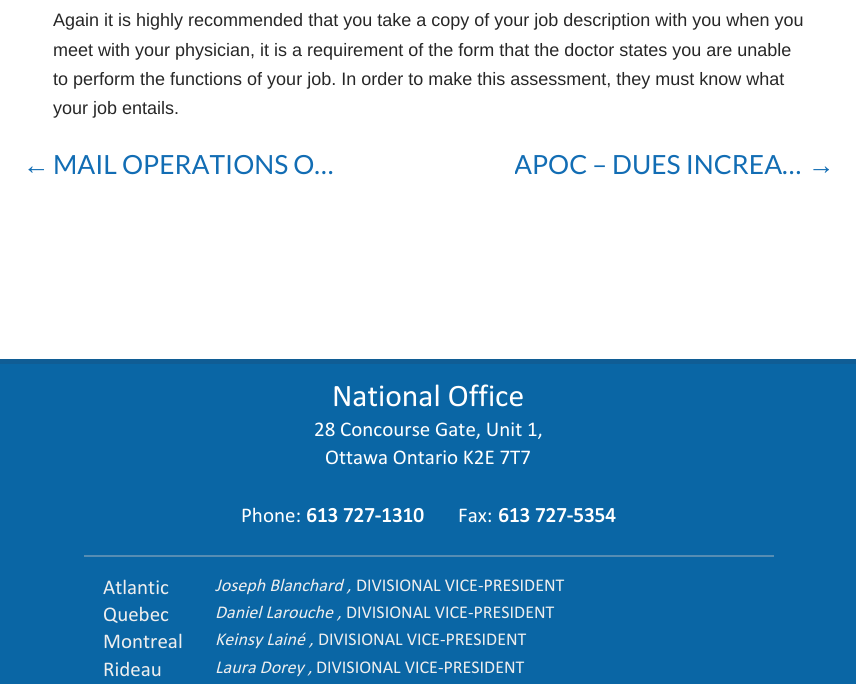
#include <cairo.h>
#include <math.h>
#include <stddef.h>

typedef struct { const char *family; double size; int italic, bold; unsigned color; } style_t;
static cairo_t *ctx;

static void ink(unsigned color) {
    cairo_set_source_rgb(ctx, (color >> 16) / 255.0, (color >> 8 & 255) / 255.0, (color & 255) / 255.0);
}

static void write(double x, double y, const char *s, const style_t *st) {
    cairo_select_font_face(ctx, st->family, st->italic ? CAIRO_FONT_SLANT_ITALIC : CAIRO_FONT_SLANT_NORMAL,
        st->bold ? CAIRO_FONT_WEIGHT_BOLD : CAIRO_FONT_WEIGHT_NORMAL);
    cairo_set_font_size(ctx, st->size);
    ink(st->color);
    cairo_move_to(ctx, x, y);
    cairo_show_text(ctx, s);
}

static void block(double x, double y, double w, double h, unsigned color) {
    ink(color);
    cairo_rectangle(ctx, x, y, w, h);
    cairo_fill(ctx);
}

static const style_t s1 = {"Liberation Sans", 18, 0, 0, 0x272727};
static const style_t s2 = {"Liberation Sans", 26.4, 0, 0, 0x126db4};
static const style_t s3 = {"Lato", 26.4, 0, 0, 0x126db4};
static const style_t s4 = {"Calibri", 31.5, 0, 0, 0xffffff};
static const style_t s5 = {"Calibri", 21, 0, 0, 0xffffff};
static const style_t s6 = {"Calibri", 21, 0, 1, 0xffffff};
static const style_t s7 = {"Calibri", 21, 0, 0, 0xeeeeee};
static const style_t s8 = {"Calibri", 18, 1, 0, 0xeeeeee};
static const style_t s9 = {"Calibri", 18, 0, 0, 0xeeeeee};

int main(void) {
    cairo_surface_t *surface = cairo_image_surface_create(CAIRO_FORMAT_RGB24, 856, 684);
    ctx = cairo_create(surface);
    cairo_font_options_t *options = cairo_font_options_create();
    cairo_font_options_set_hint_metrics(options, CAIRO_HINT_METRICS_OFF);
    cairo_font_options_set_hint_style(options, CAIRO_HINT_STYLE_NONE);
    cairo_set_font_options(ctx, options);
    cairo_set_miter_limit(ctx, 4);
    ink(0xffffff);
    cairo_paint(ctx);
    write(53, 26, "Again it is highly recommended that you take a copy of your job description with you when you", &s1);
    write(53, 56, "meet with your physician, it is a requirement of the form that the doctor states you are unable", &s1);
    write(53, 85, "to perform the functions of your job. In order to make this assessment, they must know what", &s1);
    write(53, 114, "your job entails.", &s1);
    write(23, 174, "←", &s2);
    write(53, 174, "MAIL OPERATIONS O…", &s3);
    cairo_save(ctx);
    cairo_rectangle(ctx, 515, 147, 319, 36);
    cairo_clip(ctx);
    write(514, 174, "APOC – DUES INCREA…", &s3);
    cairo_restore(ctx);
    write(808, 174, "→", &s2);
    block(0, 364, 856, 320, 0x0a66a5);
    block(0, 359, 856, 5, 0x105d95);
    write(332, 406, "National Office", &s4);
    write(314, 436, "28 Concourse Gate, Unit 1,", &s5);
    write(325, 464, "Ottawa Ontario K2E 7T7", &s5);
    write(241, 522, "Phone:", &s5);
    write(306, 522, "613 727-1310", &s6);
    write(458, 522, "Fax:", &s5);
    write(498, 522, "613 727-5354", &s6);
    block(84, 555, 690, 2, 0x568db3);
    write(103, 594, "Atlantic", &s7);
    write(215, 591, "Joseph Blanchard ,", &s8);
    write(356, 591, "DIVISIONAL VICE-PRESIDENT", &s9);
    write(103, 621, "Quebec", &s7);
    write(215, 618, "Daniel Larouche ,", &s8);
    write(346, 618, "DIVISIONAL VICE-PRESIDENT", &s9);
    write(103, 648, "Montreal", &s7);
    write(215, 645, "Keinsy Lainé ,", &s8);
    write(318, 645, "DIVISIONAL VICE-PRESIDENT", &s9);
    write(103, 676, "Rideau", &s7);
    write(215, 673, "Laura Dorey ,", &s8);
    write(316, 673, "DIVISIONAL VICE-PRESIDENT", &s9);
    cairo_surface_write_to_png(surface, "screenshot.png");
    cairo_font_options_destroy(options);
    cairo_destroy(ctx);
    cairo_surface_destroy(surface);
    return 0;
}
